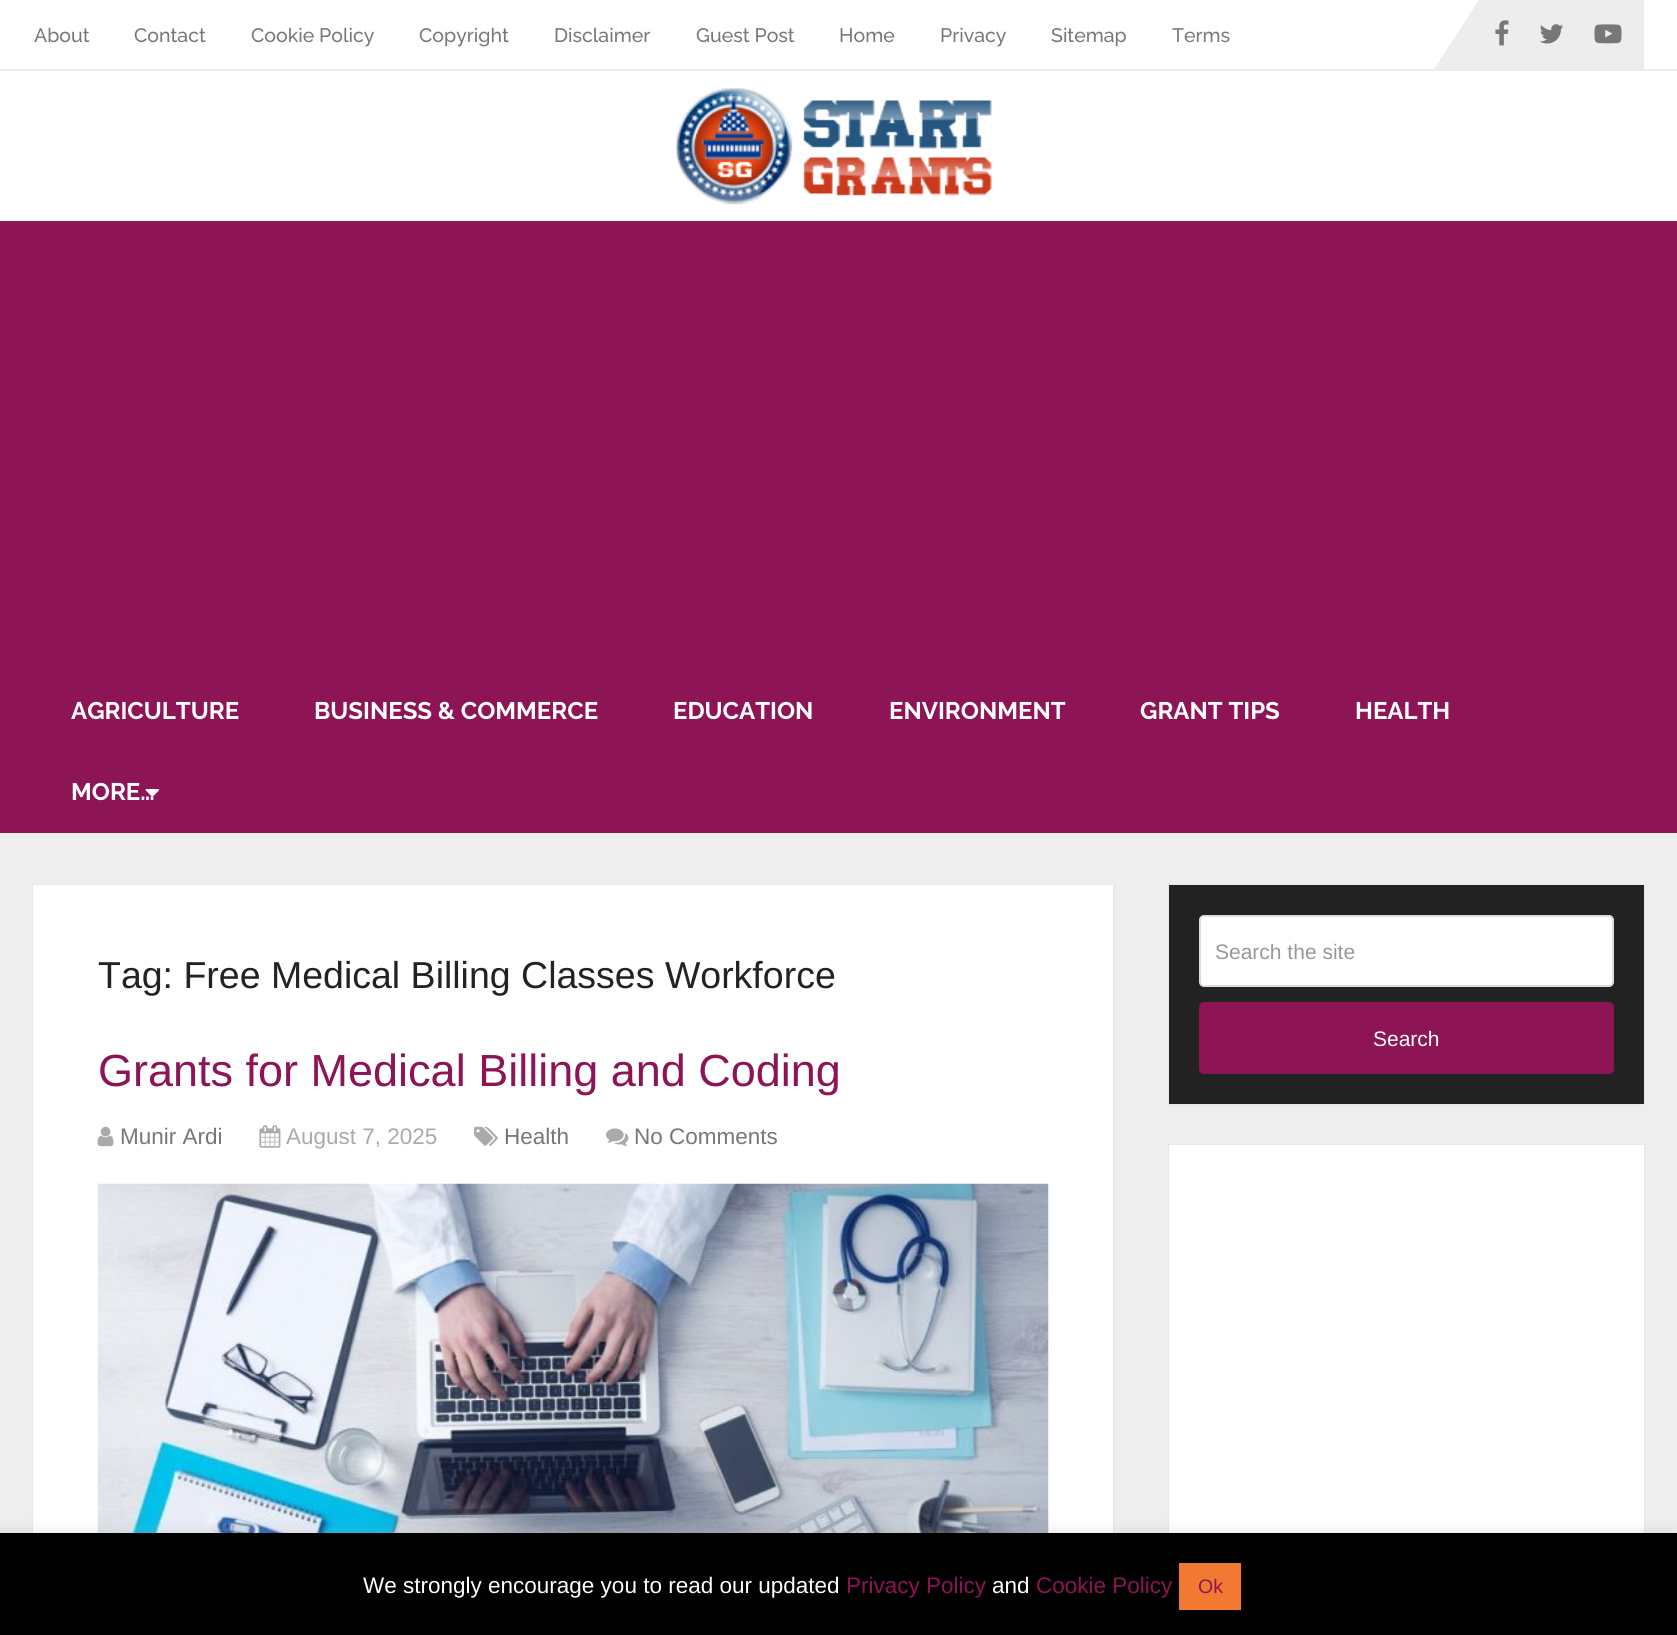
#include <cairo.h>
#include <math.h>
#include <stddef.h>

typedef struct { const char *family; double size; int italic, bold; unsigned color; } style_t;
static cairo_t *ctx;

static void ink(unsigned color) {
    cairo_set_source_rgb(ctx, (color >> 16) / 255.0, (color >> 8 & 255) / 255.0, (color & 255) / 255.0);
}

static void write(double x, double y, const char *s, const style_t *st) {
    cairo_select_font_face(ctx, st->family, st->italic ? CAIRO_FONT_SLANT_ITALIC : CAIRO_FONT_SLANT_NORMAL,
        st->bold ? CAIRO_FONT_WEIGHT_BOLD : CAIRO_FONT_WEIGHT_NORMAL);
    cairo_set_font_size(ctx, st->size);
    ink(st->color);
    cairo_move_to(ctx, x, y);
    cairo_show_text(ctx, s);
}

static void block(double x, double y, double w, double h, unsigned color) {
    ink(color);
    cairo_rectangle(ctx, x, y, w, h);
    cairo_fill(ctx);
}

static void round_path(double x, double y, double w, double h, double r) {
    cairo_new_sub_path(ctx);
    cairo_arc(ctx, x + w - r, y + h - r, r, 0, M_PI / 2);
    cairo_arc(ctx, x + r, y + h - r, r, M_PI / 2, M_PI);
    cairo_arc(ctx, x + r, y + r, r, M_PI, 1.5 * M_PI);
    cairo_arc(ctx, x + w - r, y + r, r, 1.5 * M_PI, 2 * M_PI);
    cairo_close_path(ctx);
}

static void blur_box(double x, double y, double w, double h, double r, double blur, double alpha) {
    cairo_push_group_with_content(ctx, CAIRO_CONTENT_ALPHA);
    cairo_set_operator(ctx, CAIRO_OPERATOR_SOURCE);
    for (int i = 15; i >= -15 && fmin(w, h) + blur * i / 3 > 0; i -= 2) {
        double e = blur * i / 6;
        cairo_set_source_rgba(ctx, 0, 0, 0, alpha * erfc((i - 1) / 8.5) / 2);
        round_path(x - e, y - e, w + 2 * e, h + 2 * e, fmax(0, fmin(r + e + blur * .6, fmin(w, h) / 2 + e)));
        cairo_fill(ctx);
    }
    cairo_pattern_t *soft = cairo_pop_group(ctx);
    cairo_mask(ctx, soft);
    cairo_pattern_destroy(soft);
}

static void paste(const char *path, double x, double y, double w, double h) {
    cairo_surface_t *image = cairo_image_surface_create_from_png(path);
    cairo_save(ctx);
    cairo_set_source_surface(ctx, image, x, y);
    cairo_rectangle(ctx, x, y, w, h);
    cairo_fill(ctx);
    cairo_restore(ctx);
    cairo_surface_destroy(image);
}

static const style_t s1 = {"Raleway Medium", 19.5, 0, 0, 0x777777};
static const style_t s2 = {"Raleway", 24, 0, 1, 0xffffff};
static const style_t s3 = {"Liberation Sans", 37.5, 0, 0, 0x222222};
static const style_t s4 = {"Liberation Sans", 45, 0, 0, 0x8d1455};
static const style_t s5 = {"Liberation Sans", 22.5, 0, 0, 0x777777};
static const style_t s6 = {"Liberation Sans", 22.5, 0, 0, 0xaaaaaa};
static const style_t s7 = {"Liberation Sans", 21, 0, 0, 0x999999};
static const style_t s8 = {"Liberation Sans", 21, 0, 0, 0xffffff};
static const style_t s9 = {"Liberation Sans", 22.5, 0, 0, 0xffffff};
static const style_t s10 = {"Liberation Sans", 22.5, 0, 0, 0x8d1455};
static const style_t s11 = {"Liberation Sans", 19.5, 0, 0, 0x8d1455};

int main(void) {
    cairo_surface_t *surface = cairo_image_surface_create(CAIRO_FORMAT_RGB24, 1677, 1635);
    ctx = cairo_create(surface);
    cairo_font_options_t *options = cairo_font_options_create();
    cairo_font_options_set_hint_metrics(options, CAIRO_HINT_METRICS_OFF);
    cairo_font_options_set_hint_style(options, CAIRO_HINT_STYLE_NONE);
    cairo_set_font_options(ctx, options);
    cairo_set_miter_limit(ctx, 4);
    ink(0xeeeeee);
    cairo_paint(ctx);
    block(0, 0, 1677, 221, 0xffffff);
    block(0, 69, 1677, 2, 0xededed);
    write(34, 42, "About", &s1);
    write(134, 42, "Contact", &s1);
    write(251, 42, "Cookie Policy", &s1);
    write(419, 42, "Copyright", &s1);
    write(554, 42, "Disclaimer", &s1);
    write(696, 42, "Guest Post", &s1);
    write(839, 42, "Home", &s1);
    write(940, 42, "Privacy", &s1);
    write(1051, 42, "Sitemap", &s1);
    write(1172, 42, "Terms", &s1);
    block(1479, 0, 165, 69, 0xededed);
    cairo_new_path(ctx);
    cairo_move_to(ctx, 1479, 0);
    cairo_line_to(ctx, 1479, 69);
    cairo_line_to(ctx, 1434, 69);
    cairo_close_path(ctx);
    cairo_fill(ctx);
    paste("pic1.png", 1495, 20, 14, 26);
    paste("pic2.png", 1540, 24, 24, 20);
    paste("pic3.png", 1594, 24, 28, 20);
    paste("pic4.png", 676, 88, 316, 117);
    block(0, 221, 1677, 612, 0x8d1455);
    write(71, 719, "AGRICULTURE", &s2);
    write(314, 719, "BUSINESS & COMMERCE", &s2);
    write(673, 719, "EDUCATION", &s2);
    write(889, 719, "ENVIRONMENT", &s2);
    write(1140, 719, "GRANT TIPS", &s2);
    write(1355, 719, "HEALTH", &s2);
    write(71, 800, "MORE…", &s2);
    paste("pic5.png", 145, 789, 15, 8);
    ink(0x323232);
    blur_box(33, 885, 1080, 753, 0, 1, 0.1);
    block(33, 885, 1080, 648, 0xffffff);
    write(98, 988, "Tag: Free Medical Billing Classes Workforce", &s3);
    write(98, 1086, "Grants for Medical Billing and Coding", &s4);
    paste("pic6.png", 97, 1126, 17, 21);
    write(120, 1144, "Munir Ardi", &s5);
    paste("pic7.png", 259, 1125, 22, 23);
    write(286, 1144, "August 7, 2025", &s6);
    paste("pic8.png", 474, 1126, 24, 20);
    write(504, 1144, "Health", &s5);
    paste("pic9.png", 606, 1128, 23, 18);
    write(634, 1144, "No Comments", &s5);
    paste("pic10.png", 97, 1183, 952, 350);
    ink(0x323232);
    blur_box(1169, 885, 475, 219, 0, 1, 0.1);
    block(1169, 885, 475, 219, 0x222222);
    ink(0xffffff);
    round_path(1200, 916, 413, 70, 4);
    cairo_fill_preserve(ctx);
    ink(0xdddddd);
    cairo_stroke(ctx);
    write(1215, 959, "Search the site", &s7);
    ink(0x8d1455);
    round_path(1199, 1002, 415, 72, 5);
    cairo_fill(ctx);
    write(1373, 1046, "Search", &s8);
    ink(0x323232);
    blur_box(1169, 1145, 475, 435, 0, 1, 0.1);
    block(1169, 1145, 475, 388, 0xffffff);
    ink(0xacabab);
    blur_box(0, 1532, 1677, 102, 0, 7.5, 0.3);
    block(0, 1533, 1677, 102, 0x000000);
    write(363, 1593, "We strongly encourage you to read our updated", &s9);
    write(846, 1593, "Privacy Policy", &s10);
    write(992, 1593, "and", &s9);
    write(1036, 1593, "Cookie Policy", &s10);
    block(1179, 1563, 62, 47, 0xf27932);
    write(1198, 1593, "Ok", &s11);
    cairo_surface_write_to_png(surface, "screenshot.png");
    cairo_font_options_destroy(options);
    cairo_destroy(ctx);
    cairo_surface_destroy(surface);
    return 0;
}
